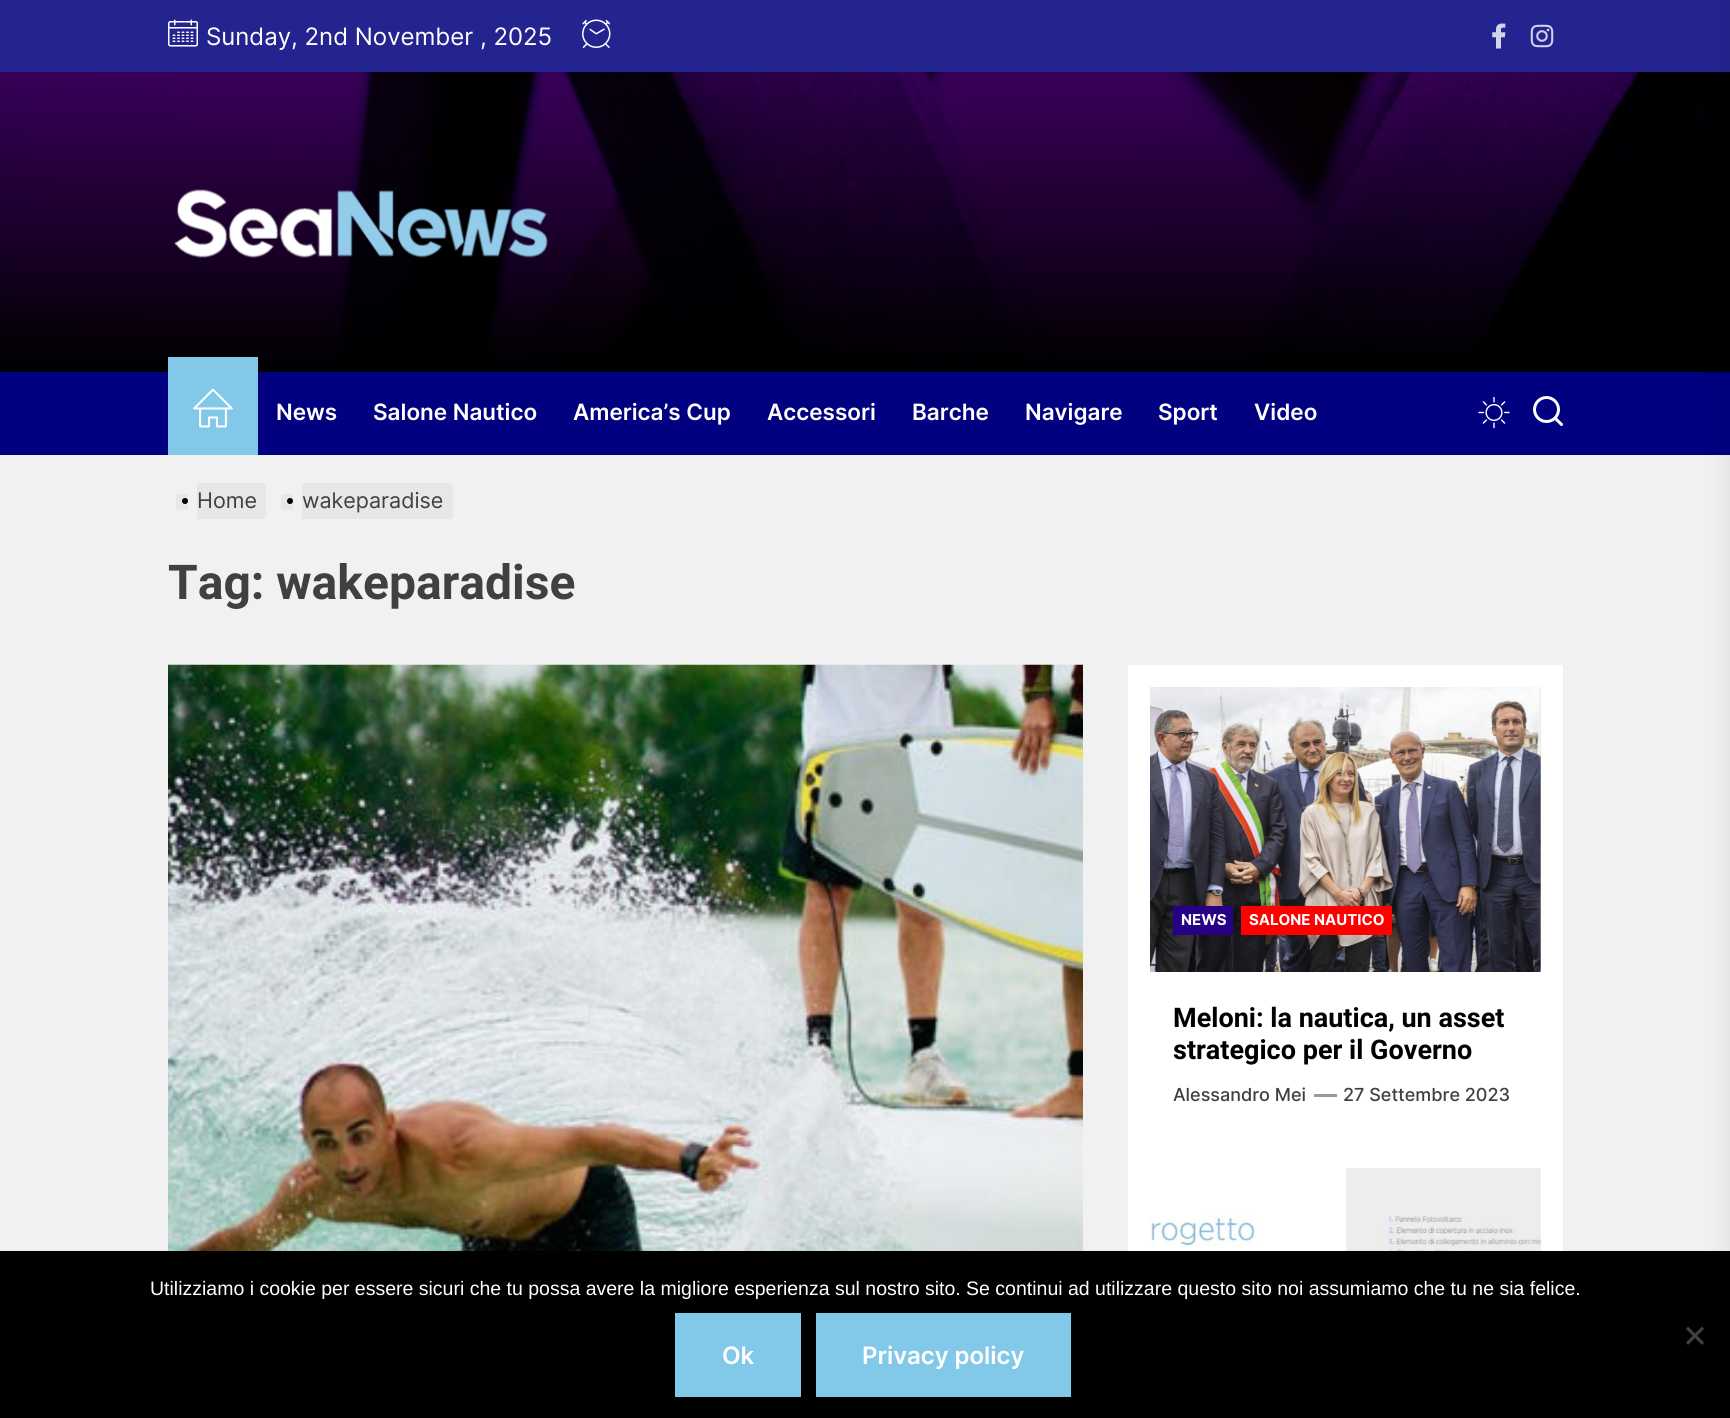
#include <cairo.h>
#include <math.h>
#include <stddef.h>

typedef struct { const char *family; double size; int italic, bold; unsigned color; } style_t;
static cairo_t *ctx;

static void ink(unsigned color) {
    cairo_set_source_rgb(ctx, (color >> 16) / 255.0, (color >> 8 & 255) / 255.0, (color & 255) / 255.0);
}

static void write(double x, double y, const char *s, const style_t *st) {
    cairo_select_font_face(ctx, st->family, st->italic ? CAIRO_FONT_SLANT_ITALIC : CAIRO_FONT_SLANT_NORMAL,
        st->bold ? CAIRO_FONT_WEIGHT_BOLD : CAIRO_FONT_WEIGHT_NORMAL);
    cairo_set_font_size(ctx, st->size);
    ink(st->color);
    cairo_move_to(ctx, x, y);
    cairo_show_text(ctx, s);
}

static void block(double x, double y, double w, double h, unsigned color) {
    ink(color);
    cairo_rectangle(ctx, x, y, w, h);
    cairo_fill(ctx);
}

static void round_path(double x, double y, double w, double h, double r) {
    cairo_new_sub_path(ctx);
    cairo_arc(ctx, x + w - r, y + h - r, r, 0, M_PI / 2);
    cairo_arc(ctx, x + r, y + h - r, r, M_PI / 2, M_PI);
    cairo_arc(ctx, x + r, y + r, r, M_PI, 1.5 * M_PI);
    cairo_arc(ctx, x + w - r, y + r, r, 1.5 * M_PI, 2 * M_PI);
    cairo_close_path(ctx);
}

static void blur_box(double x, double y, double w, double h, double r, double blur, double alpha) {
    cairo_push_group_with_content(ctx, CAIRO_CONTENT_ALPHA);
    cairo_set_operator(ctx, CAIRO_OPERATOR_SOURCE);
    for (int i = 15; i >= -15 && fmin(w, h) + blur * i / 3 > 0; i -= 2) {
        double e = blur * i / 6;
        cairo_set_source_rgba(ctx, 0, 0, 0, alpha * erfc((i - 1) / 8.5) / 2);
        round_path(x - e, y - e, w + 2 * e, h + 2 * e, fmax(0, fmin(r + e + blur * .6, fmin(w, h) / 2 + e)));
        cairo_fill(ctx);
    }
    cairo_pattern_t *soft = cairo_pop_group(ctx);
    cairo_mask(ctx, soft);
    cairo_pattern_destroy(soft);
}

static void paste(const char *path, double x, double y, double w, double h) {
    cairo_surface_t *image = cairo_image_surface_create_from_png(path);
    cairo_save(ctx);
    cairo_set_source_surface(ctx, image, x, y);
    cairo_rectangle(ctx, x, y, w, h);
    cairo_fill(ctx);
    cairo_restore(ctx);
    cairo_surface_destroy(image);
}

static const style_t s1 = {"Inter", 24, 0, 0, 0xffffff};
static const style_t s2 = {"Inter SemiBold", 22.5, 0, 0, 0xffffff};
static const style_t s3 = {"Inter", 21.5, 0, 0, 0x404040};
static const style_t s4 = {"Roboto", 48, 0, 1, 0x404040};
static const style_t s5 = {"Inter", 15, 0, 1, 0xffffff};
static const style_t s6 = {"Roboto", 27, 0, 1, 0x000000};
static const style_t s7 = {"Inter Medium", 18, 0, 0, 0x404040};
static const style_t s8 = {"Liberation Sans", 19.5, 0, 0, 0xffffff};
static const style_t s9 = {"Inter SemiBold", 24, 0, 0, 0xffffff};

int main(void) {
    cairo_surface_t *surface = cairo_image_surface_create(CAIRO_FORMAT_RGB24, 1730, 1418);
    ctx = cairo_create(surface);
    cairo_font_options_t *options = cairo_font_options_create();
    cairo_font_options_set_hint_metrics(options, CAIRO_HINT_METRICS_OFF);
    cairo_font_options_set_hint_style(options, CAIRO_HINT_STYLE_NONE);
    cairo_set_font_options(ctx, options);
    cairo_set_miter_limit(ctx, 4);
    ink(0xf1f1f1);
    cairo_paint(ctx);
    block(0, 0, 1730, 72, 0x242491);
    paste("pic1.png", 168, 19, 30, 28);
    write(206, 45, "Sunday, 2nd November , 2025", &s1);
    paste("pic2.png", 582, 19, 29, 29);
    paste("pic3.png", 1492, 23, 14, 26);
    paste("pic4.png", 1530, 24, 24, 24);
    paste("pic5.png", 0, 72, 1730, 300);
    paste("pic6.png", 174, 189, 374, 69);
    block(0, 372, 1730, 83, 0x000080);
    block(168, 357, 90, 98, 0x82c9e9);
    paste("pic7.png", 193, 388, 40, 40);
    write(276, 420, "News", &s2);
    write(373, 420, "Salone Nautico", &s2);
    write(573, 420, "America’s Cup", &s2);
    write(767, 420, "Accessori", &s2);
    write(912, 420, "Barche", &s2);
    write(1025, 420, "Navigare", &s2);
    write(1158, 420, "Sport", &s2);
    write(1254, 420, "Video", &s2);
    paste("pic8.png", 1478, 396, 32, 33);
    paste("pic9.png", 1533, 396, 30, 30);
    ink(0x000000);
    blur_box(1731, 0, 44, 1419, 0, 15, 0.1);
    ink(0xe7e7e7);
    cairo_new_path(ctx);
    cairo_move_to(ctx, 179, 494);
    cairo_line_to(ctx, 188, 494);
    cairo_line_to(ctx, 188, 510);
    cairo_line_to(ctx, 179, 510);
    cairo_curve_to(ctx, 177.5, 510, 176, 508.5, 176, 507);
    cairo_line_to(ctx, 176, 497);
    cairo_curve_to(ctx, 176, 495.5, 177.5, 494, 179, 494);
    cairo_close_path(ctx);
    cairo_fill(ctx);
    cairo_new_path(ctx);
    cairo_move_to(ctx, 197, 483);
    cairo_line_to(ctx, 263, 483);
    cairo_curve_to(ctx, 264.5, 483, 266, 484.5, 266, 486);
    cairo_line_to(ctx, 266, 516);
    cairo_curve_to(ctx, 266, 517.5, 264.5, 519, 263, 519);
    cairo_line_to(ctx, 197, 519);
    cairo_close_path(ctx);
    cairo_fill(ctx);
    ink(0x000000);
    cairo_arc(ctx, 185, 501, 3, 0, 2 * M_PI);
    cairo_fill(ctx);
    write(197, 508, "Home", &s3);
    ink(0xe7e7e7);
    cairo_new_path(ctx);
    cairo_move_to(ctx, 284, 494);
    cairo_line_to(ctx, 293, 494);
    cairo_line_to(ctx, 293, 510);
    cairo_line_to(ctx, 284, 510);
    cairo_curve_to(ctx, 282.5, 510, 281, 508.5, 281, 507);
    cairo_line_to(ctx, 281, 497);
    cairo_curve_to(ctx, 281, 495.5, 282.5, 494, 284, 494);
    cairo_close_path(ctx);
    cairo_fill(ctx);
    cairo_new_path(ctx);
    cairo_move_to(ctx, 302, 483);
    cairo_line_to(ctx, 450, 483);
    cairo_curve_to(ctx, 451.5, 483, 453, 484.5, 453, 486);
    cairo_line_to(ctx, 453, 516);
    cairo_curve_to(ctx, 453, 517.5, 451.5, 519, 450, 519);
    cairo_line_to(ctx, 302, 519);
    cairo_close_path(ctx);
    cairo_fill(ctx);
    ink(0x000000);
    cairo_arc(ctx, 290, 501, 3, 0, 2 * M_PI);
    cairo_fill(ctx);
    write(302, 508, "wakeparadise", &s3);
    write(168, 599, "Tag: wakeparadise", &s4);
    paste("pic10.png", 168, 664, 915, 587);
    block(1128, 665, 435, 586, 0xffffff);
    block(1540, 687, 1, 285, 0xd8d8d8);
    paste("pic11.png", 1150, 687, 391, 285);
    block(1173, 906, 60, 29, 0x260085);
    write(1181, 925, "NEWS", &s5);
    block(1241, 906, 151, 29, 0xff0000);
    write(1249, 925, "SALONE NAUTICO", &s5);
    write(1173, 1027, "Meloni: la nautica, un asset", &s6);
    write(1173, 1059, "strategico per il Governo", &s6);
    write(1173, 1101, "Alessandro Mei", &s7);
    block(1314, 1094, 23, 3, 0x999999);
    write(1343, 1101, "27 Settembre 2023", &s7);
    paste("pic12.png", 1150, 1168, 391, 83);
    block(0, 1251, 1730, 167, 0x000000);
    write(150, 1295, "Utilizziamo i cookie per essere sicuri che tu possa avere la migliore esperienza sul nostro sito. Se continui ad utilizzare questo sito noi assumiamo che tu ne sia felice.", &s8);
    ink(0x404040);
    cairo_new_path(ctx);
    cairo_move_to(ctx, 1702, 1326.5);
    cairo_line_to(ctx, 1704, 1329);
    cairo_line_to(ctx, 1688, 1345);
    cairo_line_to(ctx, 1686, 1342.5);
    cairo_close_path(ctx);
    cairo_fill(ctx);
    cairo_new_path(ctx);
    cairo_move_to(ctx, 1686, 1329);
    cairo_line_to(ctx, 1688, 1326.5);
    cairo_line_to(ctx, 1704, 1342.5);
    cairo_line_to(ctx, 1702, 1345);
    cairo_close_path(ctx);
    cairo_fill(ctx);
    block(675, 1313, 126, 84, 0x82c9e9);
    write(722, 1364, "Ok", &s9);
    block(816, 1313, 255, 84, 0x82c9e9);
    write(862, 1364, "Privacy policy", &s9);
    cairo_surface_write_to_png(surface, "screenshot.png");
    cairo_font_options_destroy(options);
    cairo_destroy(ctx);
    cairo_surface_destroy(surface);
    return 0;
}
